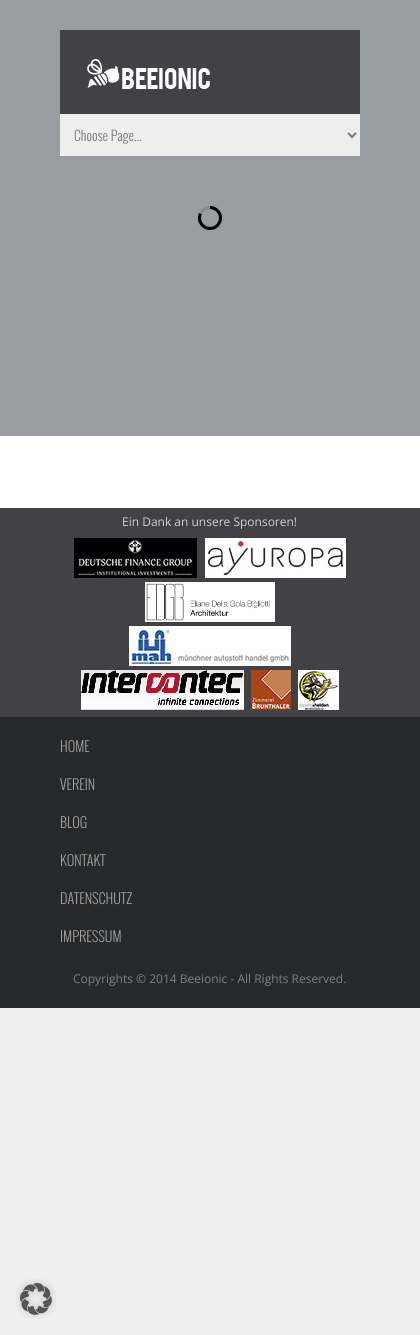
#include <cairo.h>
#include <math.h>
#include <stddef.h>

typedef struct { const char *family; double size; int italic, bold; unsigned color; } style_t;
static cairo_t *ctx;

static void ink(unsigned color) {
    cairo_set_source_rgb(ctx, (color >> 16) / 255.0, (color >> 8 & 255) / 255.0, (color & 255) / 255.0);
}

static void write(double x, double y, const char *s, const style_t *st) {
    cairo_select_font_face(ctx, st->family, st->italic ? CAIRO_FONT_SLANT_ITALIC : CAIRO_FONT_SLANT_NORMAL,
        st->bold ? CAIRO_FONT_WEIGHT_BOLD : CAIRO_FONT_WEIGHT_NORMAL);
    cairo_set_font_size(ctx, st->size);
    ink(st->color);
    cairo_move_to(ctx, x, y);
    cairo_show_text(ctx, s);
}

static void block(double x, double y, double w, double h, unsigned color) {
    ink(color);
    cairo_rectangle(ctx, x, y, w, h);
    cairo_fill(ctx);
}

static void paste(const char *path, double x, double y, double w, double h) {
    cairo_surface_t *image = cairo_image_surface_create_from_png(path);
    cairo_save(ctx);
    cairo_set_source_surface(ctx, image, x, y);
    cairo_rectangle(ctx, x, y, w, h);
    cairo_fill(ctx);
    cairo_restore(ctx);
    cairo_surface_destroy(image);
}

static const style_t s1 = {"Oswald Light", 13.5, 0, 0, 0x777777};
static const style_t s2 = {"Open Sans", 12, 0, 0, 0xd1d1d1};
static const style_t s3 = {"Oswald Light", 14, 0, 0, 0xa1a1a1};
static const style_t s4 = {"Open Sans", 12, 0, 0, 0x7c8187};

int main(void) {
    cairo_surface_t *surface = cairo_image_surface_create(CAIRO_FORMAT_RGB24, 420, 1335);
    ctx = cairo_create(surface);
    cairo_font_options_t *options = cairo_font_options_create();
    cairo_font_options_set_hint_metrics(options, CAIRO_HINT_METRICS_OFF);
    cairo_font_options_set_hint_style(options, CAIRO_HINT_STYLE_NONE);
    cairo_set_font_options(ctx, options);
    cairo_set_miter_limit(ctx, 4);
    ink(0xefefef);
    cairo_paint(ctx);
    block(0, 436, 420, 72, 0xffffff);
    block(0, 0, 420, 436, 0x999da1);
    paste("pic1.png", 198, 206, 24, 24);
    block(60, 30, 300, 84, 0x414146);
    paste("pic2.png", 87, 59, 123, 30);
    block(60, 114, 300, 42, 0xefefef);
    cairo_new_path(ctx);
    cairo_move_to(ctx, 348, 133);
    cairo_line_to(ctx, 352, 137);
    cairo_line_to(ctx, 356, 133);
    ink(0x777777);
    cairo_stroke(ctx);
    write(74, 141, "Choose Page...", &s1);
    block(0, 508, 420, 209, 0x414146);
    write(122, 526, "Ein Dank an unsere Sponsoren!", &s2);
    paste("pic3.png", 74, 538, 123, 40);
    paste("pic4.png", 205, 538, 141, 40);
    paste("pic5.png", 145, 582, 130, 40);
    paste("pic6.png", 129, 626, 162, 40);
    paste("pic7.png", 81, 670, 163, 40);
    paste("pic8.png", 251, 670, 40, 40);
    paste("pic9.png", 298, 670, 41, 40);
    block(0, 717, 420, 291, 0x27282a);
    write(60, 752, "HOME", &s3);
    write(60, 790, "VEREIN", &s3);
    write(60, 828, "BLOG", &s3);
    write(60, 866, "KONTAKT", &s3);
    write(60, 904, "DATENSCHUTZ", &s3);
    write(60, 942, "IMPRESSUM", &s3);
    write(73, 983, "Copyrights © 2014 Beeionic - All Rights Reserved.", &s4);
    paste("pic10.png", 16, 1279, 40, 40);
    cairo_surface_write_to_png(surface, "screenshot.png");
    cairo_font_options_destroy(options);
    cairo_destroy(ctx);
    cairo_surface_destroy(surface);
    return 0;
}
